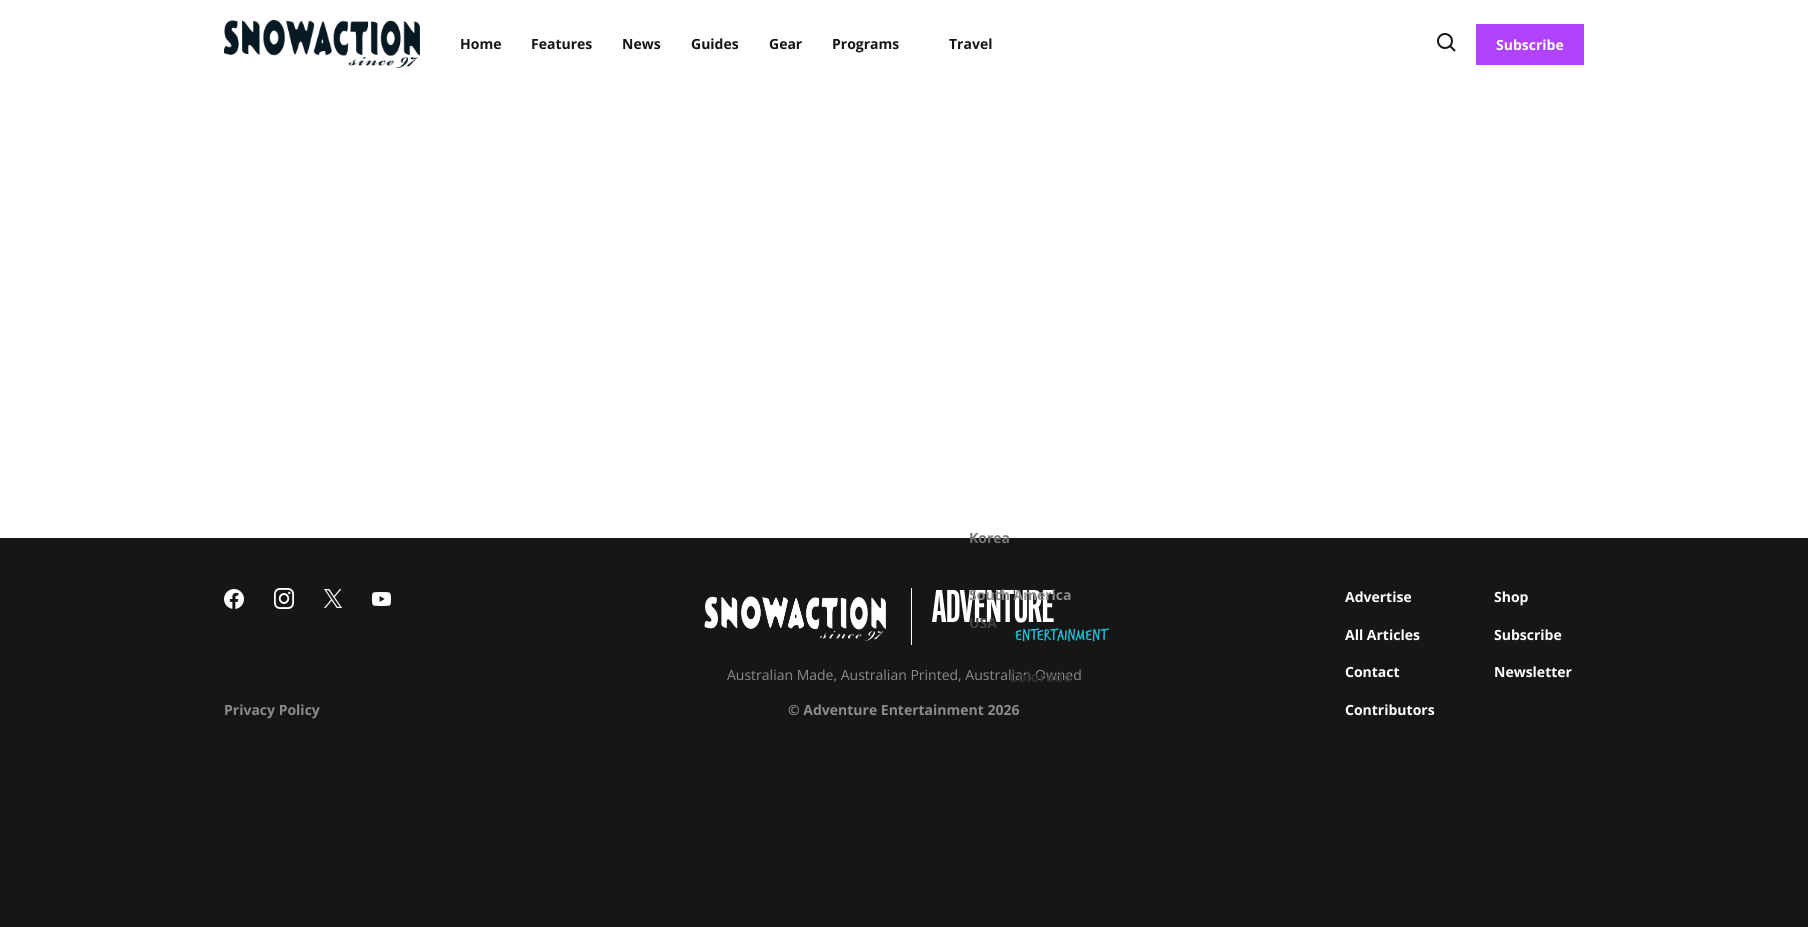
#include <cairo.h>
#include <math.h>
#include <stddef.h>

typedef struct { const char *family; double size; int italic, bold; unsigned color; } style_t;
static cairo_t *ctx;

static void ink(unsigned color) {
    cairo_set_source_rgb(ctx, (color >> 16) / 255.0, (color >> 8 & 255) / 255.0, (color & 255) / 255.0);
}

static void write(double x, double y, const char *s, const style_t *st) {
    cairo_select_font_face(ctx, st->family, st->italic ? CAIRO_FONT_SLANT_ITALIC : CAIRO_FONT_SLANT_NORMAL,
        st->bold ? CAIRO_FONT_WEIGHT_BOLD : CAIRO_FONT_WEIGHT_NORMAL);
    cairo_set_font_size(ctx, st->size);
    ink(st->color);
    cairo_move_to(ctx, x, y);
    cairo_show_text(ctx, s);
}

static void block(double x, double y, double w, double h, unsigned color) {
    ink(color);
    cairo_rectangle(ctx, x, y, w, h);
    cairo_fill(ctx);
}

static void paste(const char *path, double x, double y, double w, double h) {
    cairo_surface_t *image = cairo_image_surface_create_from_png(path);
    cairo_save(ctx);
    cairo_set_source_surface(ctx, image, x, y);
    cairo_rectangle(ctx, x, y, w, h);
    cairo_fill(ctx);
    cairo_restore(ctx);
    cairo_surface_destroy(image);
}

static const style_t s1 = {"Open Sans", 14, 0, 1, 0x161616};
static const style_t s2 = {"Open Sans", 14, 0, 1, 0x747474};
static const style_t s3 = {"Open Sans", 14, 0, 1, 0x8b8b8b};
static const style_t s4 = {"Open Sans", 14, 0, 1, 0x3f3f3f};
static const style_t s5 = {"Open Sans", 14, 0, 0, 0x8b8b8b};
static const style_t s6 = {"Open Sans", 14, 0, 1, 0x303030};
static const style_t s7 = {"Open Sans", 14, 0, 1, 0xffffff};

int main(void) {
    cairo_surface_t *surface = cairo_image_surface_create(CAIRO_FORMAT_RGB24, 1808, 927);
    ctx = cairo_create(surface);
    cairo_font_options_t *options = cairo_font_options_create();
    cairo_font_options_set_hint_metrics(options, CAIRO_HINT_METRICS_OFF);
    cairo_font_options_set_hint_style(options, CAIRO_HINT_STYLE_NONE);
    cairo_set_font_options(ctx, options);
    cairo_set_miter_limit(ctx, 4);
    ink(0x161616);
    cairo_paint(ctx);
    block(0, 0, 1808, 538, 0xffffff);
    paste("pic1.png", 224, 20, 196, 48);
    write(460, 49, "Home", &s1);
    write(531, 49, "Features", &s1);
    write(622, 49, "News", &s1);
    write(691, 49, "Guides", &s1);
    write(769, 49, "Gear", &s1);
    write(832, 49, "Programs", &s1);
    write(949, 49, "Travel", &s1);
    write(969, 543, "Korea", &s2);
    paste("pic7.png", 932, 590, 178, 52);
    write(969, 600, "South America", &s3);
    write(969, 628, "USA", &s4);
    write(727, 680, "Australian Made, Australian Printed, Australian Owned", &s5);
    write(1009, 682, "Colorado", &s6);
    cairo_new_path(ctx);
    cairo_arc(ctx, 1445, 41, 7, 0, 2 * M_PI);
    ink(0x161616);
    cairo_stroke(ctx);
    cairo_new_path(ctx);
    cairo_move_to(ctx, 1450, 46);
    cairo_line_to(ctx, 1455, 51);
    cairo_stroke(ctx);
    block(1476, 24, 108, 41, 0xb142ff);
    write(1496, 50, "Subscribe", &s7);
    paste("pic2.png", 224, 589, 20, 20);
    paste("pic3.png", 274, 588, 20, 21);
    paste("pic4.png", 324, 589, 18, 19);
    paste("pic5.png", 372, 592, 19, 14);
    write(224, 715, "Privacy Policy", &s3);
    paste("pic6.png", 704, 596, 182, 45);
    block(911, 588, 1, 57, 0xffffff);
    write(788, 715, "© Adventure Entertainment 2026", &s3);
    write(1345, 602, "Advertise", &s7);
    write(1494, 602, "Shop", &s7);
    write(1345, 640, "All Articles", &s7);
    write(1494, 640, "Subscribe", &s7);
    write(1345, 677, "Contact", &s7);
    write(1494, 677, "Newsletter", &s7);
    write(1345, 715, "Contributors", &s7);
    cairo_surface_write_to_png(surface, "screenshot.png");
    cairo_font_options_destroy(options);
    cairo_destroy(ctx);
    cairo_surface_destroy(surface);
    return 0;
}
